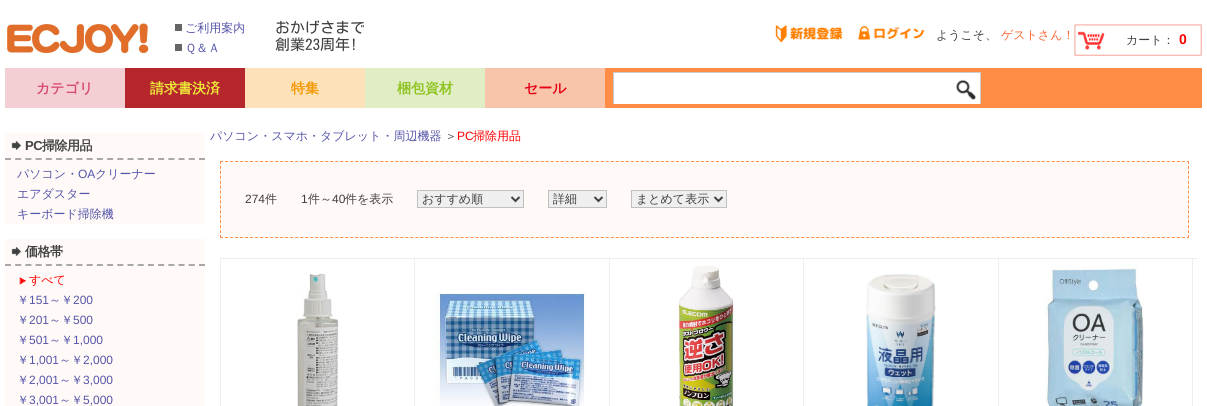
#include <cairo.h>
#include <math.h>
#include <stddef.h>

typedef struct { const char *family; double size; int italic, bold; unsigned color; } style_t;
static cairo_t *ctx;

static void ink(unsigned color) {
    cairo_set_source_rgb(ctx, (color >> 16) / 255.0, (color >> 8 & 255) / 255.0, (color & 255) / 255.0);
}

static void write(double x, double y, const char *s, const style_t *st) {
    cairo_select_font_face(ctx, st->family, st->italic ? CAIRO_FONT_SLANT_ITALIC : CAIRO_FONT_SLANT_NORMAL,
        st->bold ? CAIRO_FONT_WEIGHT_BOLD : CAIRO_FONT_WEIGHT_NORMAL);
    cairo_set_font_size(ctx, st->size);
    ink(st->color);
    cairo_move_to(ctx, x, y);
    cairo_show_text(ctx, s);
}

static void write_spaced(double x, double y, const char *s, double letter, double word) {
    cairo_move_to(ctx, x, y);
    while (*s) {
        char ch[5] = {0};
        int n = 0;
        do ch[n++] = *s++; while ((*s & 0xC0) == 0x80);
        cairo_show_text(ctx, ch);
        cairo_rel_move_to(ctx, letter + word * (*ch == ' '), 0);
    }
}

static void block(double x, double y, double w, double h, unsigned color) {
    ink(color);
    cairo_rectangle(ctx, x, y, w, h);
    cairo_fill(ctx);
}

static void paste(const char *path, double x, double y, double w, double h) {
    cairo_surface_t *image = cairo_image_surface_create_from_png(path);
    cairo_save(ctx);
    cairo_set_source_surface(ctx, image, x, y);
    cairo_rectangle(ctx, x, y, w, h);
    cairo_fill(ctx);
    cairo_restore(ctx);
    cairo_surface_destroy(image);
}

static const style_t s1 = {"WenQuanYi Zen Hei Medium", 12, 0, 0, 0x5555aa};
static const style_t s2 = {"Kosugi", 15, 0, 0, 0x404040};
static const style_t s3 = {"WenQuanYi Zen Hei Medium", 12, 0, 0, 0x404040};
static const style_t s4 = {"WenQuanYi Zen Hei Medium", 12, 0, 0, 0xff6633};
static const style_t s5 = {"Liberation Sans", 14, 0, 1, 0xff0000};
static const style_t s6 = {"WenQuanYi Zen Hei", 14, 0, 1, 0xd64c72};
static const style_t s7 = {"WenQuanYi Zen Hei", 14, 0, 1, 0xeeea38};
static const style_t s8 = {"WenQuanYi Zen Hei", 14, 0, 1, 0xf39800};
static const style_t s9 = {"WenQuanYi Zen Hei", 14, 0, 1, 0x8ec31f};
static const style_t s10 = {"WenQuanYi Zen Hei", 14, 0, 1, 0xe60012};
static const style_t s11 = {"Liberation Sans", 12, 0, 0, 0x5555aa};
static const style_t s12 = {"WenQuanYi Zen Hei Medium", 12, 0, 0, 0xff0000};
static const style_t s13 = {"Liberation Sans", 12, 0, 0, 0xff0000};
static const style_t s14 = {"Liberation Sans", 12, 0, 0, 0x404040};

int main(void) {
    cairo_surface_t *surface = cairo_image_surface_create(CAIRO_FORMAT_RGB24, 1207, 406);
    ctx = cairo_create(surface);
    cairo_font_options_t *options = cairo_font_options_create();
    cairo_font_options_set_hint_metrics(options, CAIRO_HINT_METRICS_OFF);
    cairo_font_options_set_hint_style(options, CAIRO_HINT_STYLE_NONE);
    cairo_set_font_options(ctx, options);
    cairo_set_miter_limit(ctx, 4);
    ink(0xffffff);
    cairo_paint(ctx);
    paste("pic1.png", 7, 22, 142, 33);
    block(175, 24, 7, 7, 0x666666);
    write(185, 32, "ご利用案内", &s1);
    block(175, 44, 7, 7, 0x666666);
    write(185, 52, "Ｑ＆Ａ", &s1);
    write(275, 33, "おかげさまで", &s2);
    write(275, 50, "創業23周年!", &s2);
    paste("pic2.png", 775, 25, 68, 18);
    paste("pic3.png", 857, 26, 68, 14);
    write(936, 39, "ようこそ、", &s3);
    write(1001, 39, "ゲストさん！", &s4);
    paste("pic4.png", 1074, 24, 128, 32);
    write(1126, 44, "カート：", &s3);
    write(1179, 44, "0", &s5);
    block(5, 68, 120, 40, 0xf3cfd3);
    write(36, 93, "カテゴリ", &s6);
    block(125, 68, 120, 40, 0xb6272d);
    write(150, 93, "請求書決済", &s7);
    block(245, 68, 120, 40, 0xfde1b9);
    write(291, 93, "特集", &s8);
    block(365, 68, 120, 40, 0xe1edc4);
    write(397, 93, "梱包資材", &s9);
    block(485, 68, 120, 40, 0xf8c5ab);
    write(524, 93, "セール", &s10);
    block(605, 68, 597, 40, 0xff8d45);
    cairo_rectangle(ctx, 613.5, 72.5, 367, 31);
    ink(0xcccccc);
    cairo_set_line_width(ctx, 1);
    cairo_stroke(ctx);
    block(614, 73, 366, 31, 0xffffff);
    paste("pic5.png", 956, 79, 20, 21);
    block(5, 133, 200, 91, 0xfffaf7);
    paste("pic6.png", 11, 141, 10, 9);
    cairo_new_path(ctx);
    cairo_move_to(ctx, 5, 159);
    cairo_line_to(ctx, 205, 159);
    ink(0xa8a8a8);
    cairo_set_line_width(ctx, 2);
    cairo_set_dash(ctx, (double[]){6, 4.21}, 2, 0);
    cairo_stroke(ctx);
    cairo_select_font_face(ctx, "Liberation Sans", CAIRO_FONT_SLANT_NORMAL, CAIRO_FONT_WEIGHT_BOLD);
    cairo_set_font_size(ctx, 13);
    ink(0x404040);
    write_spaced(25, 150, "PC", -0.5, 0);
    cairo_select_font_face(ctx, "WenQuanYi Zen Hei", CAIRO_FONT_SLANT_NORMAL, CAIRO_FONT_WEIGHT_BOLD);
    write_spaced(42, 150, "掃除用品", -0.5, 0);
    write(17, 178, "パソコン・", &s1);
    write(78, 178, "OA", &s11);
    write(95, 178, "クリーナー", &s1);
    write(17, 198, "エアダスター", &s1);
    write(17, 218, "キーボード掃除機", &s1);
    block(5, 239, 200, 167, 0xfffaf7);
    paste("pic6.png", 11, 247, 10, 9);
    cairo_new_path(ctx);
    cairo_move_to(ctx, 5, 265);
    cairo_line_to(ctx, 205, 265);
    ink(0xa8a8a8);
    cairo_stroke(ctx);
    cairo_select_font_face(ctx, "WenQuanYi Zen Hei", CAIRO_FONT_SLANT_NORMAL, CAIRO_FONT_WEIGHT_BOLD);
    cairo_set_font_size(ctx, 13);
    ink(0x404040);
    write_spaced(25, 256, "価格帯", -0.5, 0);
    paste("pic7.png", 19, 277, 7, 8);
    write(29, 284, "すべて", &s12);
    write(17, 304, "￥", &s1);
    write(29, 304, "151", &s11);
    write(49, 304, "～￥", &s1);
    write(73, 304, "200", &s11);
    write(17, 324, "￥", &s1);
    write(29, 324, "201", &s11);
    write(49, 324, "～￥", &s1);
    write(73, 324, "500", &s11);
    write(17, 344, "￥", &s1);
    write(29, 344, "501", &s11);
    write(49, 344, "～￥", &s1);
    write(73, 344, "1,000", &s11);
    write(17, 364, "￥", &s1);
    write(29, 364, "1,001", &s11);
    write(59, 364, "～￥", &s1);
    write(83, 364, "2,000", &s11);
    write(17, 384, "￥", &s1);
    write(29, 384, "2,001", &s11);
    write(59, 384, "～￥", &s1);
    write(83, 384, "3,000", &s11);
    write(17, 404, "￥", &s1);
    write(29, 404, "3,001", &s11);
    write(59, 404, "～￥", &s1);
    write(83, 404, "5,000", &s11);
    write(210, 140, "パソコン・スマホ・タブレット・周辺機器", &s1);
    write(445, 140, "＞", &s3);
    write(457, 140, "PC", &s13);
    write(473, 140, "掃除用品", &s12);
    block(220, 161, 969, 77, 0xfffaf7);
    cairo_new_path(ctx);
    cairo_move_to(ctx, 220, 161.5);
    cairo_line_to(ctx, 1189, 161.5);
    ink(0xff8d45);
    cairo_set_line_width(ctx, 1);
    cairo_set_dash(ctx, (double[]){3, 2.01}, 2, 0);
    cairo_stroke(ctx);
    cairo_new_path(ctx);
    cairo_move_to(ctx, 1188.5, 161);
    cairo_line_to(ctx, 1188.5, 238);
    cairo_set_dash(ctx, (double[]){3, 1.93}, 2, 0);
    cairo_stroke(ctx);
    cairo_new_path(ctx);
    cairo_move_to(ctx, 220, 237.5);
    cairo_line_to(ctx, 1189, 237.5);
    cairo_set_dash(ctx, (double[]){3, 2.01}, 2, 0);
    cairo_stroke(ctx);
    cairo_new_path(ctx);
    cairo_move_to(ctx, 220.5, 161);
    cairo_line_to(ctx, 220.5, 238);
    cairo_set_dash(ctx, (double[]){3, 1.93}, 2, 0);
    cairo_stroke(ctx);
    write(245, 203, "274", &s14);
    write(265, 203, "件", &s3);
    write(301, 203, "1", &s14);
    write(308, 203, "件～", &s3);
    write(332, 203, "40", &s14);
    write(345, 203, "件を表示", &s3);
    ink(0xefefef);
    cairo_rectangle(ctx, 417.5, 190.5, 106, 17);
    cairo_fill_preserve(ctx);
    ink(0xc0c0c0);
    cairo_set_dash(ctx, NULL, 0, 0);
    cairo_stroke(ctx);
    cairo_new_path(ctx);
    cairo_move_to(ctx, 511.5, 197);
    cairo_line_to(ctx, 515.5, 201);
    cairo_line_to(ctx, 519.5, 197);
    ink(0x404040);
    cairo_set_line_width(ctx, 2);
    cairo_stroke(ctx);
    write(422, 203, "おすすめ順", &s3);
    ink(0xefefef);
    cairo_rectangle(ctx, 548.5, 190.5, 58, 17);
    cairo_fill_preserve(ctx);
    ink(0xc0c0c0);
    cairo_set_line_width(ctx, 1);
    cairo_stroke(ctx);
    cairo_new_path(ctx);
    cairo_move_to(ctx, 594.5, 197);
    cairo_line_to(ctx, 598.5, 201);
    cairo_line_to(ctx, 602.5, 197);
    ink(0x404040);
    cairo_set_line_width(ctx, 2);
    cairo_stroke(ctx);
    write(553, 203, "詳細", &s3);
    ink(0xefefef);
    cairo_rectangle(ctx, 631.5, 190.5, 95, 17);
    cairo_fill_preserve(ctx);
    ink(0xc0c0c0);
    cairo_set_line_width(ctx, 1);
    cairo_stroke(ctx);
    cairo_new_path(ctx);
    cairo_move_to(ctx, 714.5, 197);
    cairo_line_to(ctx, 718.5, 201);
    cairo_line_to(ctx, 722.5, 197);
    ink(0x404040);
    cairo_set_line_width(ctx, 2);
    cairo_stroke(ctx);
    write(636, 203, "まとめて表示", &s3);
    block(220, 258, 978, 1, 0xeeeeee);
    block(220, 258, 1, 148, 0xeeeeee);
    block(414, 259, 1, 147, 0xeeeeee);
    paste("pic8.png", 297, 273, 42, 133);
    block(609, 259, 1, 147, 0xeeeeee);
    paste("pic9.png", 432, 292, 154, 114);
    block(803, 259, 1, 147, 0xeeeeee);
    paste("pic10.png", 678, 265, 56, 141);
    block(998, 259, 1, 147, 0xeeeeee);
    paste("pic11.png", 866, 273, 70, 133);
    block(1192, 259, 1, 147, 0xeeeeee);
    paste("pic12.png", 1045, 264, 99, 142);
    cairo_surface_write_to_png(surface, "screenshot.png");
    cairo_font_options_destroy(options);
    cairo_destroy(ctx);
    cairo_surface_destroy(surface);
    return 0;
}
